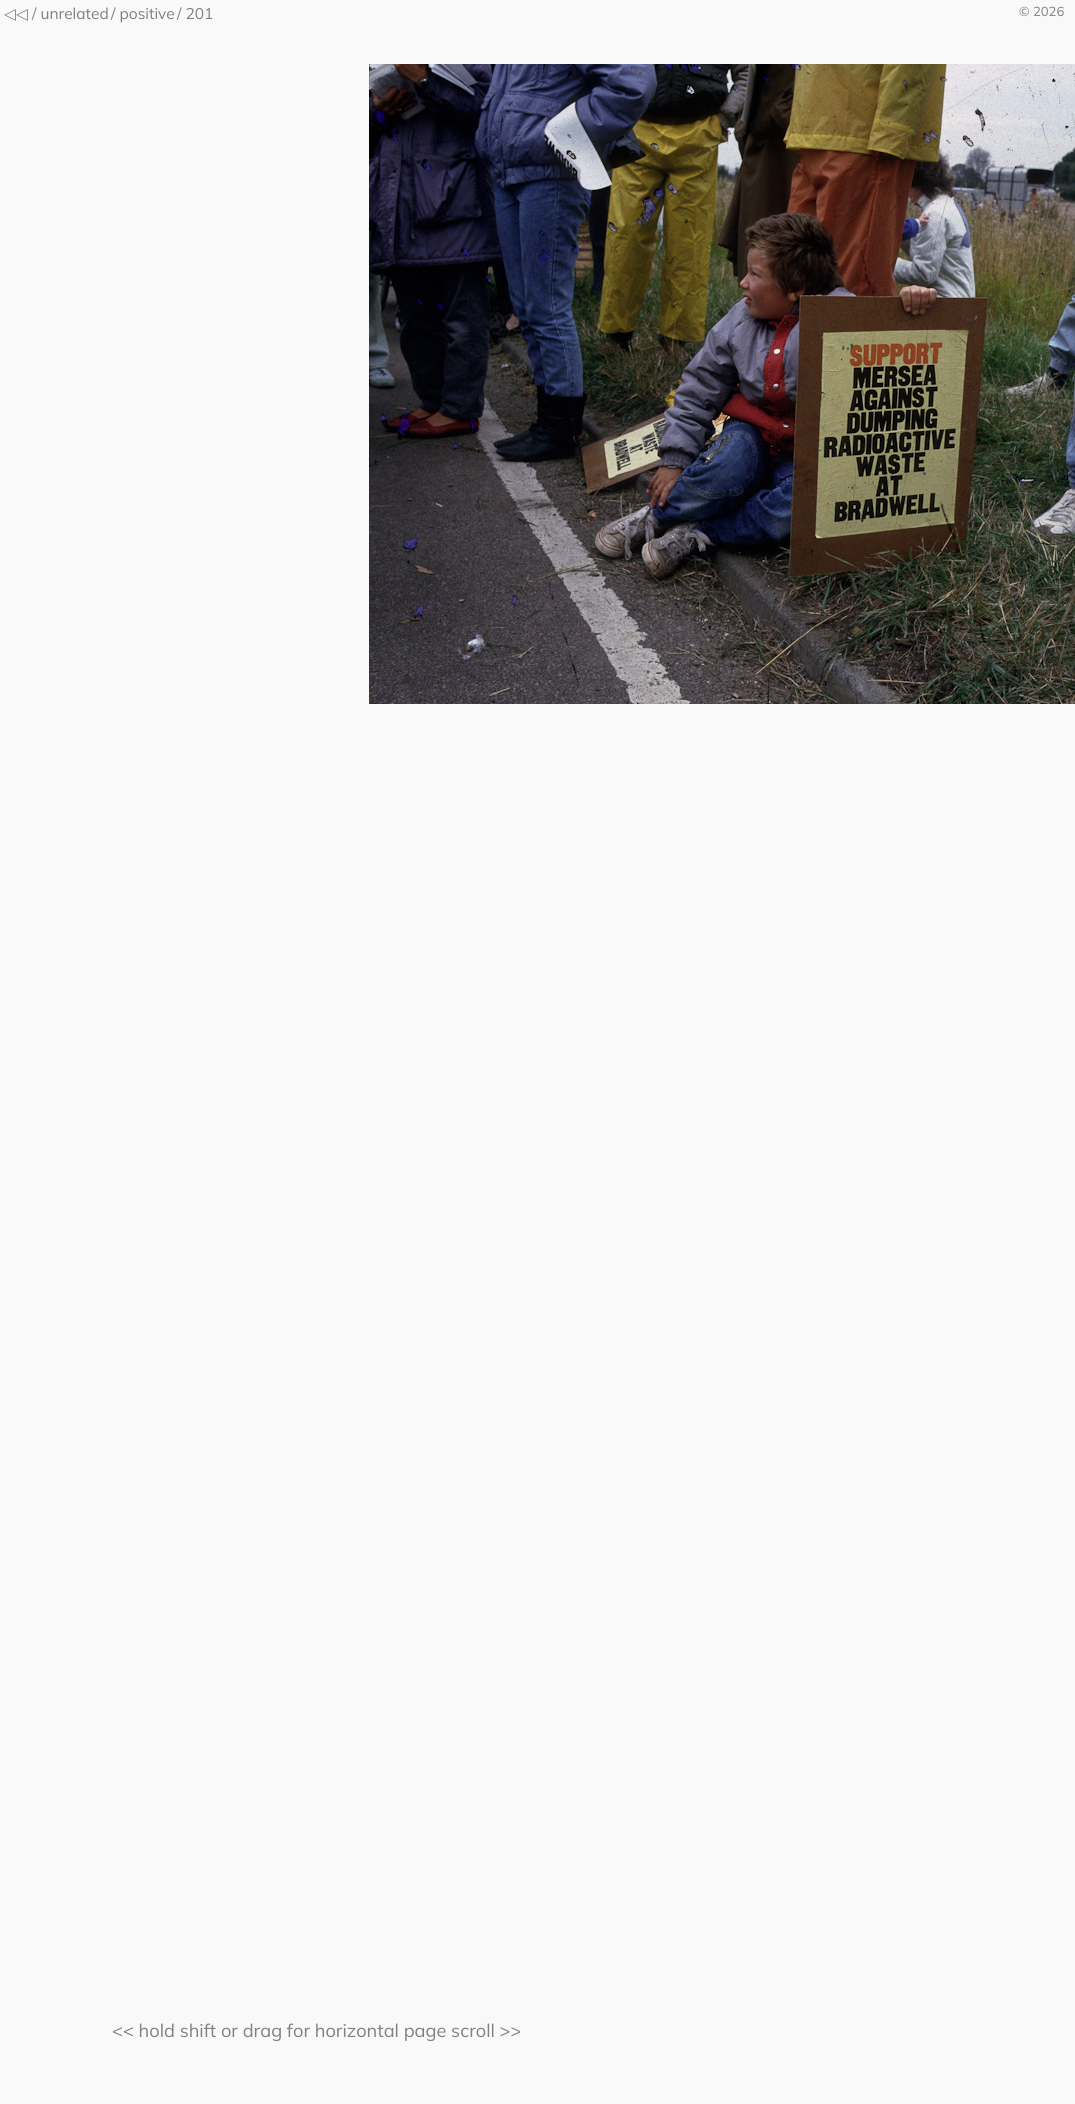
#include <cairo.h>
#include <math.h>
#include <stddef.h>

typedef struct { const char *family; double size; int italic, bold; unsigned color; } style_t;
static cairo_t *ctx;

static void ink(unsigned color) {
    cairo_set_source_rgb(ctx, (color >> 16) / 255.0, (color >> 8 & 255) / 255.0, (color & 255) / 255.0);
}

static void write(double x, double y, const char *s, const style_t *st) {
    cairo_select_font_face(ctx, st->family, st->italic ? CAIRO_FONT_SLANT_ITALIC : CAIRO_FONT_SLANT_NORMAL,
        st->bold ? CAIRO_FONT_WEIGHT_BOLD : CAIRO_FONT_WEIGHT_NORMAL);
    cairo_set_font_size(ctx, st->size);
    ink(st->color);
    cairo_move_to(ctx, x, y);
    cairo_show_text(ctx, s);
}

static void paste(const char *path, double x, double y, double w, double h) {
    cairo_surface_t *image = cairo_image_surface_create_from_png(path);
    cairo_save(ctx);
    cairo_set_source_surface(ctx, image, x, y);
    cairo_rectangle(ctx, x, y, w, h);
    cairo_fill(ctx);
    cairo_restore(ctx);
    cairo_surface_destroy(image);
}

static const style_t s1 = {"DejaVu Sans", 15.5, 0, 0, 0x808080};
static const style_t s2 = {"Mulish", 15.5, 0, 0, 0x808080};
static const style_t s3 = {"Mulish", 13, 0, 0, 0x808080};
static const style_t s4 = {"Mulish", 18.2, 0, 0, 0x808080};

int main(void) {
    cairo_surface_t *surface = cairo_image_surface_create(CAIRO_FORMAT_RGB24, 1075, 2104);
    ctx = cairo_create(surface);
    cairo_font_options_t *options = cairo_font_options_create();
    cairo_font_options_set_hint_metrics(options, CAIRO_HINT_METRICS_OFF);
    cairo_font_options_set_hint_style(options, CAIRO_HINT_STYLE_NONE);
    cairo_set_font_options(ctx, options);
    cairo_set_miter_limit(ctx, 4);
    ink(0xf9f9f9);
    cairo_paint(ctx);
    write(4, 19, "◁◁", &s1);
    write(32, 19, "/ unrelated", &s2);
    write(111, 19, "/ positive", &s2);
    write(177, 19, "/ 201", &s2);
    write(1019, 16, "© 2026", &s3);
    paste("pic1.png", 369, 64, 706, 640);
    write(112, 2037, "<< hold shift or drag for horizontal page scroll >>", &s4);
    cairo_surface_write_to_png(surface, "screenshot.png");
    cairo_font_options_destroy(options);
    cairo_destroy(ctx);
    cairo_surface_destroy(surface);
    return 0;
}
